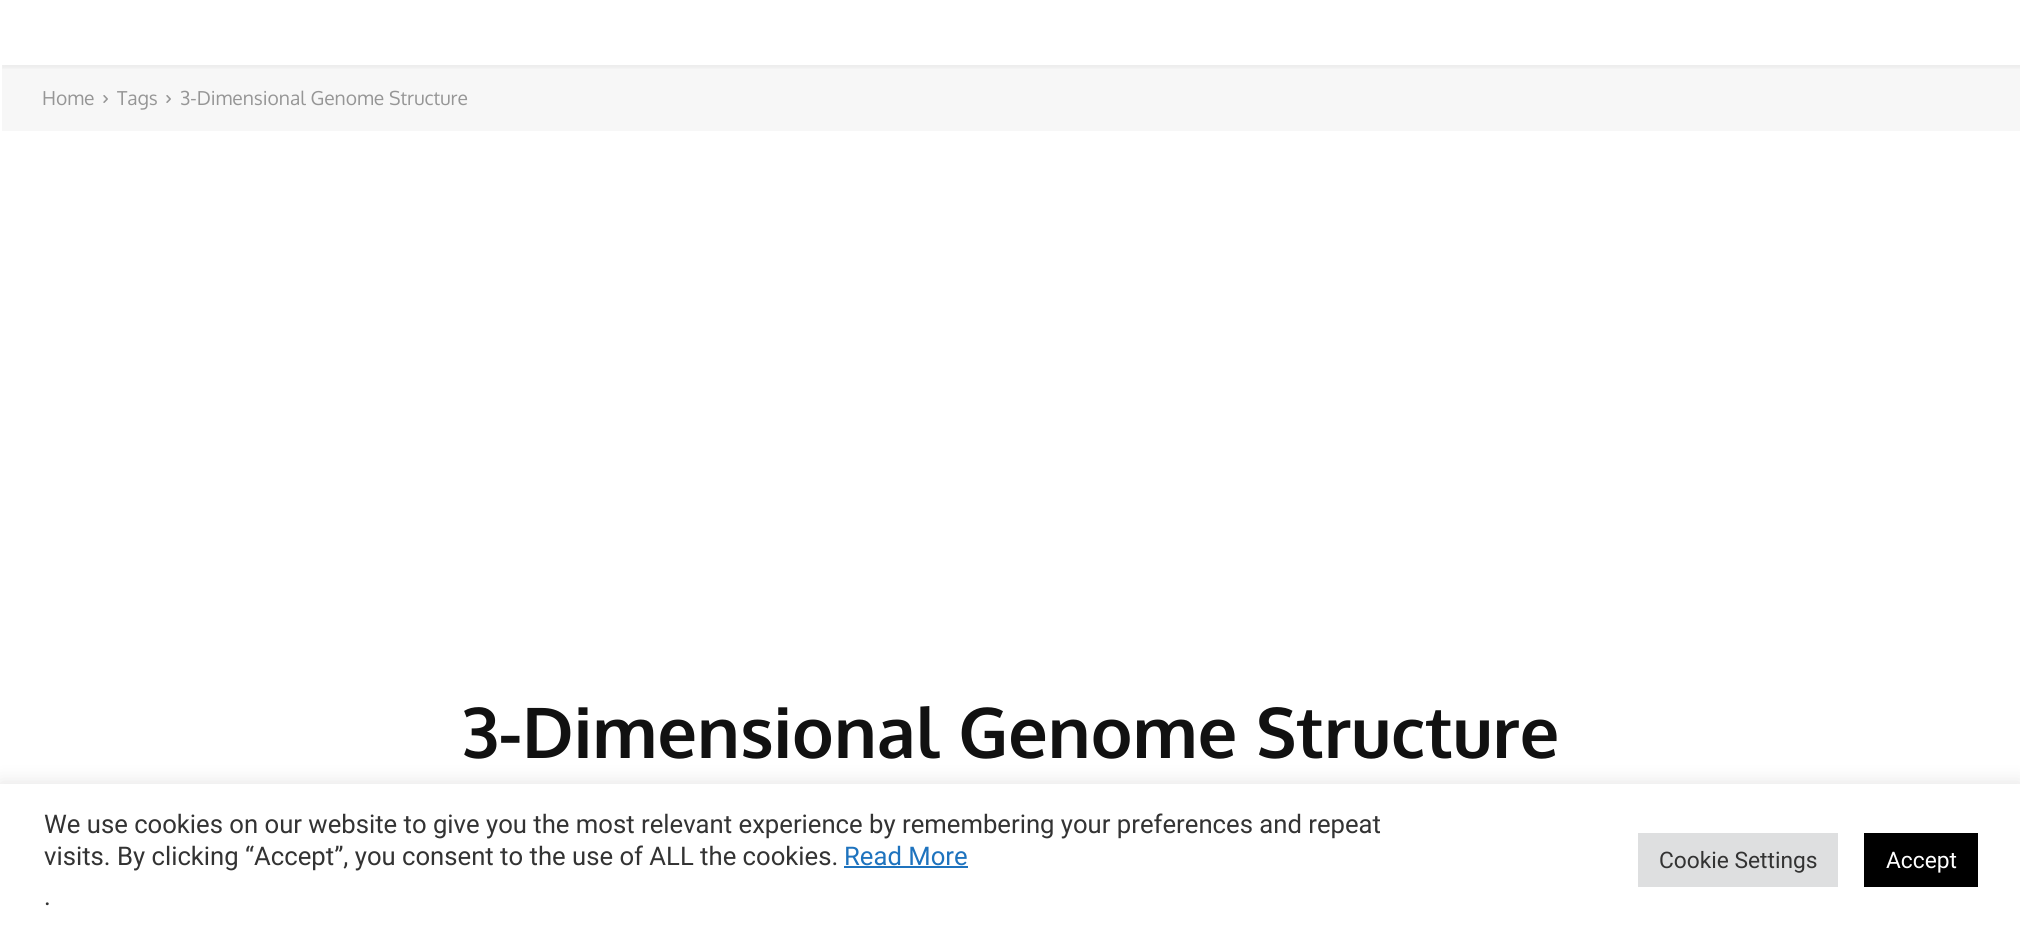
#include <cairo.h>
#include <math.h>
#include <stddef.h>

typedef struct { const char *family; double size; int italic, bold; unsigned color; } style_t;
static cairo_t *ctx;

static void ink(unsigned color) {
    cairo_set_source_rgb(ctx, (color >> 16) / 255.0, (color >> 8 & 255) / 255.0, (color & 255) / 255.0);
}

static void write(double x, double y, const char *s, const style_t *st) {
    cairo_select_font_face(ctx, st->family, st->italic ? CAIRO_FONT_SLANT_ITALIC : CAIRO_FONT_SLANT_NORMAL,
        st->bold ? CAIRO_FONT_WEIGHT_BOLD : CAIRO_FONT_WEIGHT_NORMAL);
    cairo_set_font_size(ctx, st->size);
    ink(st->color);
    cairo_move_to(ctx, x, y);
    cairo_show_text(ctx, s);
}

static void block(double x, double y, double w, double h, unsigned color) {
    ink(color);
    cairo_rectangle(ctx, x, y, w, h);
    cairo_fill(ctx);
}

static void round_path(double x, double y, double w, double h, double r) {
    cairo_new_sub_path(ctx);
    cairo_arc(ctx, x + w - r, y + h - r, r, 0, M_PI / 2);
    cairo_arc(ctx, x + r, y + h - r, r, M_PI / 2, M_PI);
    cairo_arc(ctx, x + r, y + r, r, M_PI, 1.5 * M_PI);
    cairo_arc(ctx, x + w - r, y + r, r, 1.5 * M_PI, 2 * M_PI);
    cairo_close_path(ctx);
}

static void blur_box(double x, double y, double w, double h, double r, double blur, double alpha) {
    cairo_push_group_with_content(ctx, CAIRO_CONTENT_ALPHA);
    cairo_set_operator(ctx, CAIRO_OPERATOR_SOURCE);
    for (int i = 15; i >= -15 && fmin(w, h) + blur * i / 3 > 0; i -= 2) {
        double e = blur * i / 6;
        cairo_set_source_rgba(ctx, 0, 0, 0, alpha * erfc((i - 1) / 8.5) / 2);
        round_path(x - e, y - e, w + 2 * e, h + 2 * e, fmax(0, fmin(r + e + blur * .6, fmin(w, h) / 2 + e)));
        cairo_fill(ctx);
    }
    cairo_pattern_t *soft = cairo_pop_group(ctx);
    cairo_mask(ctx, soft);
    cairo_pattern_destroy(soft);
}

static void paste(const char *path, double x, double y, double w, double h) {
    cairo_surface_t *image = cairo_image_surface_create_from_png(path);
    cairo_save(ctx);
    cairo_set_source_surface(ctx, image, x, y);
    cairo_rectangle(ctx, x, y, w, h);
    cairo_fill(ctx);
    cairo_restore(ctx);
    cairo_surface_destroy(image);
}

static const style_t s1 = {"Oxygen", 19.25, 0, 0, 0x969696};
static const style_t s2 = {"Oxygen", 70, 0, 1, 0x111111};
static const style_t s3 = {"Roboto", 25.67, 0, 0, 0x333333};
static const style_t s4 = {"Roboto", 25.67, 0, 0, 0x1e73be};
static const style_t s5 = {"Roboto", 22.75, 0, 0, 0x333333};
static const style_t s6 = {"Roboto", 22.75, 0, 0, 0xffffff};

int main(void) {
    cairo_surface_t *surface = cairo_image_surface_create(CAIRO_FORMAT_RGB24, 2020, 935);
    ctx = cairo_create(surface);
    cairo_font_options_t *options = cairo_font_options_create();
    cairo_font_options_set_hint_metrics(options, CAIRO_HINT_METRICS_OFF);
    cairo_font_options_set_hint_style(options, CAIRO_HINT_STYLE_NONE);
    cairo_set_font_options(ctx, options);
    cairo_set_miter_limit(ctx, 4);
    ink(0xffffff);
    cairo_paint(ctx);
    block(2, 65, 2018, 66, 0xf7f7f7);
    cairo_save(ctx);
    cairo_rectangle(ctx, 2, 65, 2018, 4);
    cairo_clip(ctx);
    ink(0x000000);
    blur_box(2, -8, 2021, 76, 0, 2.5, 0.05);
    cairo_restore(ctx);
    write(42, 105, "Home", &s1);
    paste("pic1.png", 103, 95, 5, 8);
    write(117, 105, "Tags", &s1);
    paste("pic1.png", 166, 95, 5, 8);
    write(180, 105, "3-Dimensional Genome Structure", &s1);
    write(462, 758, "3-Dimensional Genome Structure", &s2);
    ink(0xacabab);
    blur_box(0, 782, 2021, 153, 0, 9, 0.3);
    block(0, 784, 2020, 151, 0xffffff);
    write(44, 833, "We use cookies on our website to give you the most relevant experience by remembering your preferences and repeat", &s3);
    write(44, 865, "visits. By clicking “Accept”, you consent to the use of ALL the cookies.", &s3);
    write(844, 865, "Read More", &s4);
    block(844, 866, 124, 2, 0x1e73be);
    write(44, 905, ".", &s3);
    block(1638, 833, 200, 54, 0xdedfe0);
    write(1659, 868, "Cookie Settings", &s5);
    block(1864, 833, 114, 54, 0x000000);
    write(1886, 868, "Accept", &s6);
    cairo_surface_write_to_png(surface, "screenshot.png");
    cairo_font_options_destroy(options);
    cairo_destroy(ctx);
    cairo_surface_destroy(surface);
    return 0;
}
